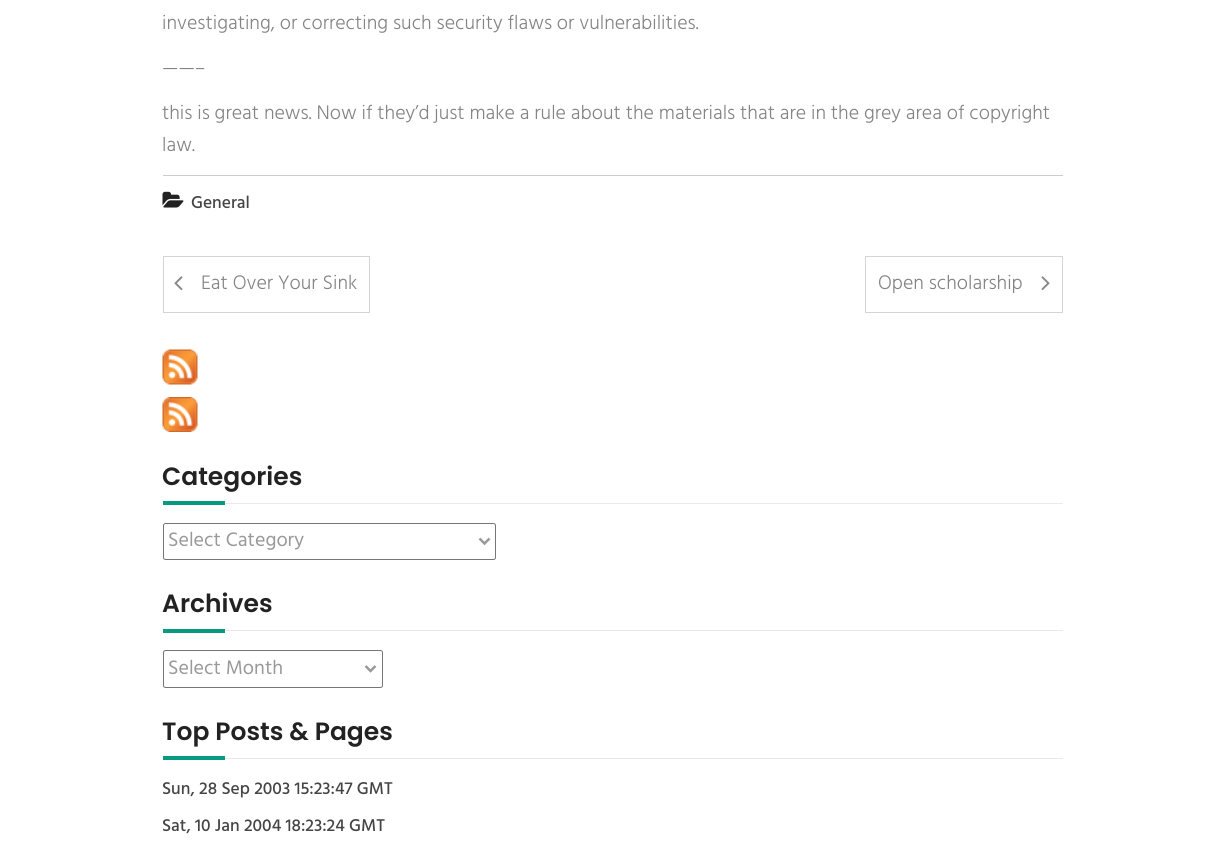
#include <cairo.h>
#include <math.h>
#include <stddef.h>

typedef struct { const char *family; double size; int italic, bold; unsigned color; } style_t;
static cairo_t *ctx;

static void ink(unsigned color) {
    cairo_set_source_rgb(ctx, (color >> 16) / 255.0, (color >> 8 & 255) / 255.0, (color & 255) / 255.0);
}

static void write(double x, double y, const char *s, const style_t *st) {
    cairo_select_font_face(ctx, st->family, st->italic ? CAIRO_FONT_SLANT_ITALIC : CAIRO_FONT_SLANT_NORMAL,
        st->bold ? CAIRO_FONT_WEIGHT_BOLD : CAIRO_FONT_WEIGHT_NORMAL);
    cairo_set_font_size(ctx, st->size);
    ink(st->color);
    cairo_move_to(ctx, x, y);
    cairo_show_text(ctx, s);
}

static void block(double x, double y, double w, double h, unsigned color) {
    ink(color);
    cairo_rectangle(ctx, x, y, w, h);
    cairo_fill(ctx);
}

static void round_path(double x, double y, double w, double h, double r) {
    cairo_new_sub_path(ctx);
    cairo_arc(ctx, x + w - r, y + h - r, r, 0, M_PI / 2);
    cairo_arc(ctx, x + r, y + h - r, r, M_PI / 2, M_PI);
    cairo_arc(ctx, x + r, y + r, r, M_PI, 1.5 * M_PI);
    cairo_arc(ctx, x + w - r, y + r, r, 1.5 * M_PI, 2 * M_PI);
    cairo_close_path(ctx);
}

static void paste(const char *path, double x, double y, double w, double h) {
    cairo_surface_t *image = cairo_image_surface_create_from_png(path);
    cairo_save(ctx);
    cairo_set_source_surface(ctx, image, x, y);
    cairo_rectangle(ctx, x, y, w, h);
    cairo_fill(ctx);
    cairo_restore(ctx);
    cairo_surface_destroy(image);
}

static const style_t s1 = {"Hind Light", 20, 0, 0, 0x848484};
static const style_t s2 = {"Hind Medium", 17.5, 0, 0, 0x454545};
static const style_t s3 = {"Poppins SemiBold", 25, 0, 0, 0x222222};
static const style_t s4 = {"Hind", 20, 0, 0, 0x999999};

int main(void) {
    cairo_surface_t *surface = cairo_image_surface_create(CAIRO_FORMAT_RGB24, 1223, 862);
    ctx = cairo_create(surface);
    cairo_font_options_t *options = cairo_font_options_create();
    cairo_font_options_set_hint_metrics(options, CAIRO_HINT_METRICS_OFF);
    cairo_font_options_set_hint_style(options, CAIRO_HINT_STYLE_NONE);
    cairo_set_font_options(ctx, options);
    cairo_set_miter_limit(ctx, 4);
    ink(0xffffff);
    cairo_paint(ctx);
    write(162, 29, "investigating, or correcting such security flaws or vulnerabilities.", &s1);
    write(162, 74, "——–", &s1);
    write(162, 119, "this is great news. Now if they’d just make a rule about the materials that are in the grey area of copyright", &s1);
    write(162, 151, "law.", &s1);
    block(163, 175, 900, 1, 0xcccccc);
    paste("pic1.png", 162, 191, 22, 17);
    write(191, 208, "General", &s2);
    cairo_rectangle(ctx, 163.5, 256.5, 206, 56);
    ink(0xd4d4d4);
    cairo_set_line_width(ctx, 1);
    cairo_stroke(ctx);
    paste("pic2.png", 174, 276, 9, 15);
    write(201, 289, "Eat Over Your Sink", &s1);
    cairo_rectangle(ctx, 865.5, 256.5, 197, 56);
    ink(0xd4d4d4);
    cairo_stroke(ctx);
    write(878, 289, "Open scholarship", &s1);
    paste("pic3.png", 1041, 276, 9, 15);
    paste("pic4.png", 162, 349, 36, 36);
    paste("pic5.png", 162, 397, 36, 35);
    block(225, 503, 838, 1, 0xeaeaea);
    write(162, 485, "Categories", &s3);
    block(163, 501, 62, 4, 0x079a80);
    round_path(163.5, 523.5, 332, 36, 2);
    ink(0x767676);
    cairo_stroke(ctx);
    cairo_new_path(ctx);
    cairo_move_to(ctx, 479.5, 538.5);
    cairo_line_to(ctx, 484.5, 543.5);
    cairo_line_to(ctx, 489.5, 538.5);
    ink(0x999999);
    cairo_set_line_width(ctx, 2.5);
    cairo_stroke(ctx);
    write(168, 546, "Select Category", &s4);
    block(225, 630, 838, 1, 0xeaeaea);
    write(162, 612, "Archives", &s3);
    block(163, 629, 62, 4, 0x079a80);
    round_path(163.5, 650.5, 219, 37, 2);
    ink(0x767676);
    cairo_set_line_width(ctx, 1);
    cairo_stroke(ctx);
    cairo_new_path(ctx);
    cairo_move_to(ctx, 365.5, 666);
    cairo_line_to(ctx, 370.5, 671);
    cairo_line_to(ctx, 375.5, 666);
    ink(0x999999);
    cairo_set_line_width(ctx, 2.5);
    cairo_stroke(ctx);
    write(168, 674, "Select Month", &s4);
    block(225, 758, 838, 1, 0xeaeaea);
    write(162, 740, "Top Posts & Pages", &s3);
    block(163, 756, 62, 4, 0x079a80);
    write(162, 794, "Sun, 28 Sep 2003 15:23:47 GMT", &s2);
    write(162, 831, "Sat, 10 Jan 2004 18:23:24 GMT", &s2);
    cairo_surface_write_to_png(surface, "screenshot.png");
    cairo_font_options_destroy(options);
    cairo_destroy(ctx);
    cairo_surface_destroy(surface);
    return 0;
}
